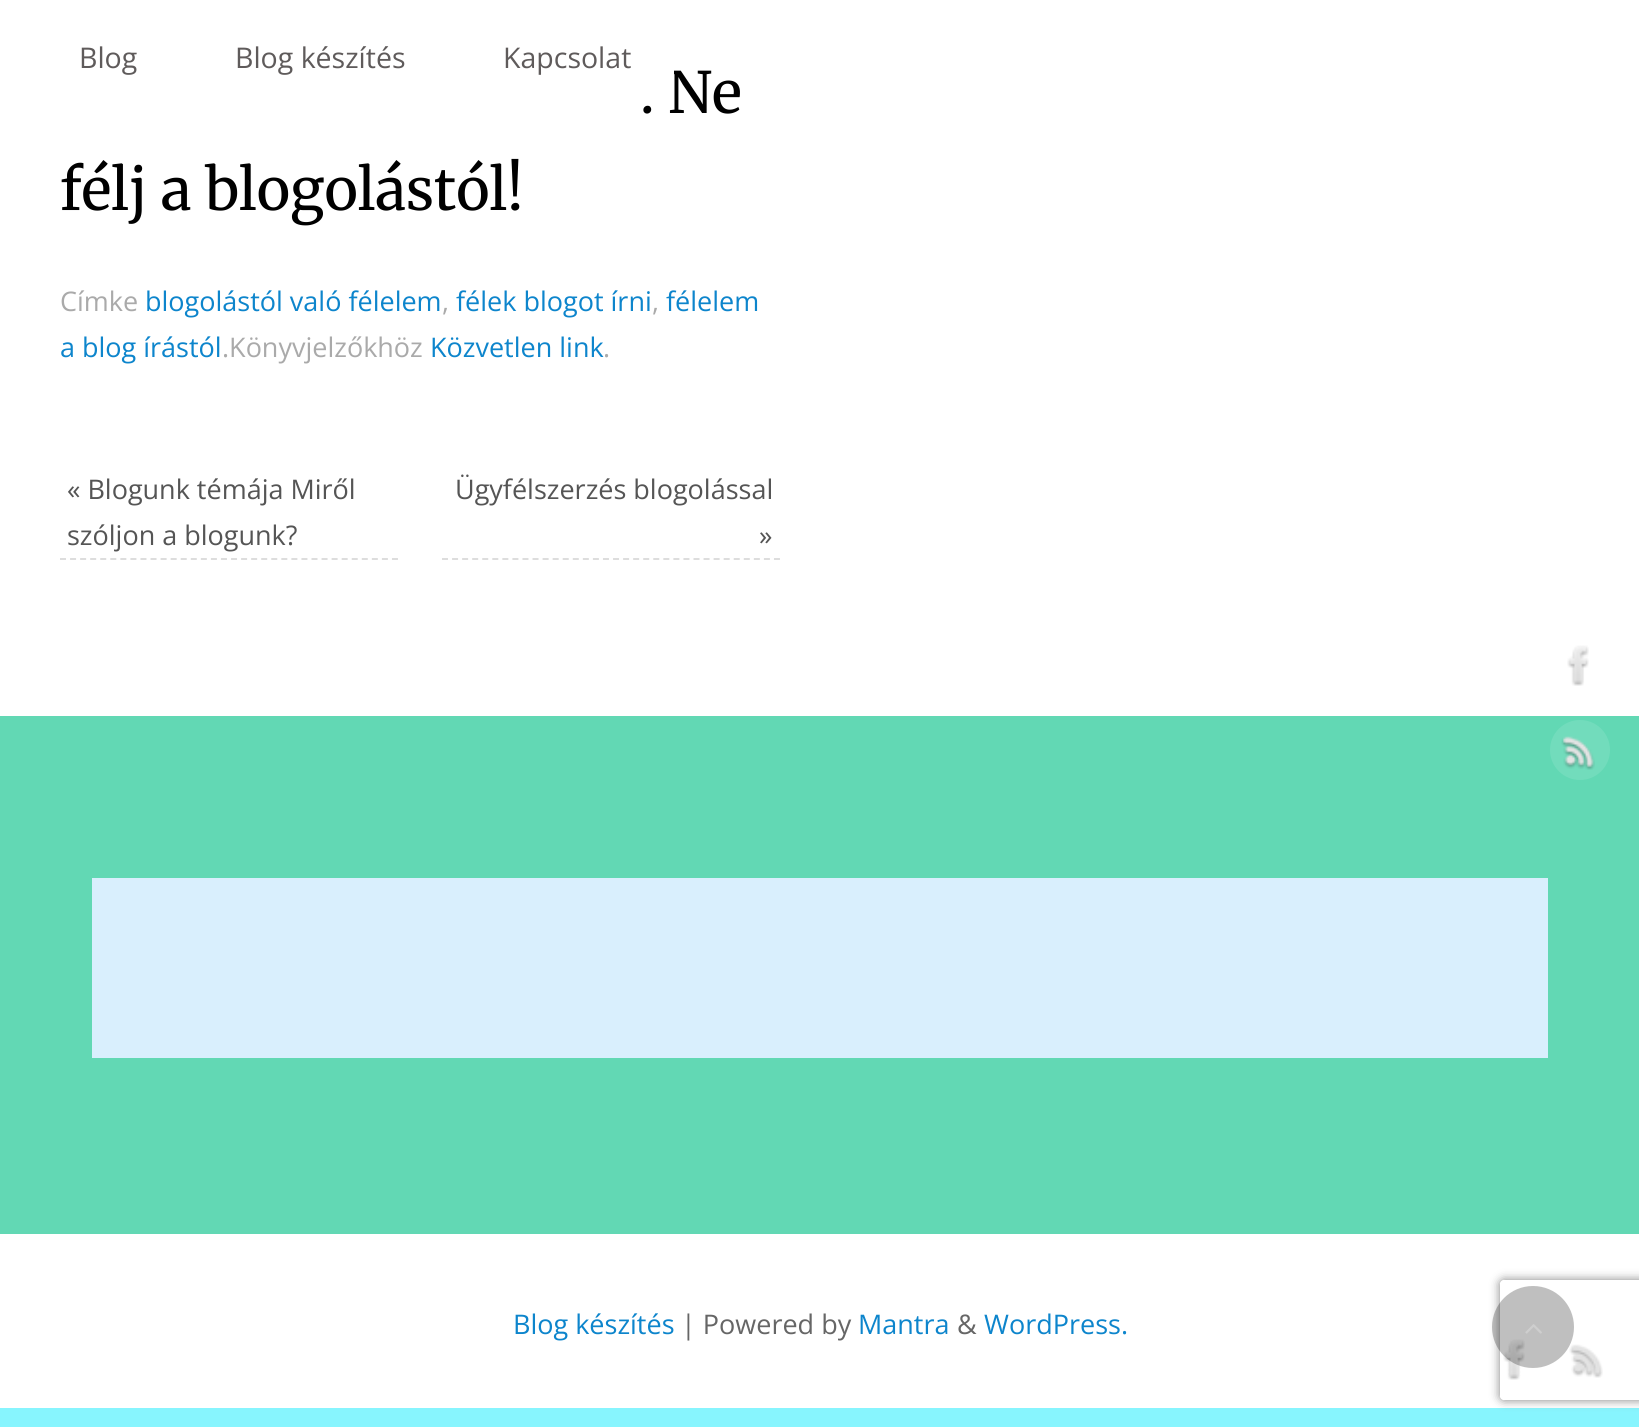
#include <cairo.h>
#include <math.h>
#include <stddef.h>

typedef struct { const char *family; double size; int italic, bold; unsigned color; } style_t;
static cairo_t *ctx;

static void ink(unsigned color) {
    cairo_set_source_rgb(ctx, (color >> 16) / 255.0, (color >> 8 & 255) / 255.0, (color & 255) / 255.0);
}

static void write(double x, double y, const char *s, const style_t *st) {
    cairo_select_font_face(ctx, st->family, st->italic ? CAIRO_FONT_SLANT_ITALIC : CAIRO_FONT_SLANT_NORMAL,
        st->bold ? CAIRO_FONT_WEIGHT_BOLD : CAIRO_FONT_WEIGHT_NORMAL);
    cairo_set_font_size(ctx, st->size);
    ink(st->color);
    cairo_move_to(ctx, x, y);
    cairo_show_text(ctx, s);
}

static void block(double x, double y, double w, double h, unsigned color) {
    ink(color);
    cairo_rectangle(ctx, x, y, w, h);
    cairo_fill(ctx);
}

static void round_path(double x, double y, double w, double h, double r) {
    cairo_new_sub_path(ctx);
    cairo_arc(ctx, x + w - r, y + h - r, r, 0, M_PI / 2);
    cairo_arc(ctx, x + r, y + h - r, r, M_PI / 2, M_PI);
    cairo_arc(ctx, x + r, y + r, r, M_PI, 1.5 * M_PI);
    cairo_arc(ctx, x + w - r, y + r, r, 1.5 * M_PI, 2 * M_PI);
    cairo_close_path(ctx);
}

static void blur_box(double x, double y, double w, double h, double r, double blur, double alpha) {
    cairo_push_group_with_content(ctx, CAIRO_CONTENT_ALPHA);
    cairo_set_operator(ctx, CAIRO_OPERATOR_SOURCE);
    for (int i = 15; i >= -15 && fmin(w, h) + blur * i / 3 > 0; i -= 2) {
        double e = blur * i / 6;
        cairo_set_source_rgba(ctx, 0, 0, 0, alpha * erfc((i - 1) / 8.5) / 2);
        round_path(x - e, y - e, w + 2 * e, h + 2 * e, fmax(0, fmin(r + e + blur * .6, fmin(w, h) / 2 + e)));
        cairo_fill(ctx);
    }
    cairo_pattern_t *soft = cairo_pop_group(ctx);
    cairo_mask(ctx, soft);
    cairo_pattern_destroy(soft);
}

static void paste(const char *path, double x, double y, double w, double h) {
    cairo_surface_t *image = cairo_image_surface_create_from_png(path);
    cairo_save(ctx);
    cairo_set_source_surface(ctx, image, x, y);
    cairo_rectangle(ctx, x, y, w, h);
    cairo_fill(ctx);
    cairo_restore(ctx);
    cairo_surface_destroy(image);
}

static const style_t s1 = {"Open Sans", 28.5, 0, 0, 0x5f5b5b};
static const style_t s2 = {"Merriweather", 57, 0, 0, 0x000000};
static const style_t s3 = {"Open Sans", 27, 0, 0, 0xaaaaaa};
static const style_t s4 = {"Open Sans", 27, 0, 0, 0x0d85cc};
static const style_t s5 = {"Open Sans", 27, 0, 0, 0x555555};
static const style_t s6 = {"Open Sans", 27, 0, 0, 0x666666};

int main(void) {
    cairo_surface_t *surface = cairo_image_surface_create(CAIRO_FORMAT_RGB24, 1639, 1427);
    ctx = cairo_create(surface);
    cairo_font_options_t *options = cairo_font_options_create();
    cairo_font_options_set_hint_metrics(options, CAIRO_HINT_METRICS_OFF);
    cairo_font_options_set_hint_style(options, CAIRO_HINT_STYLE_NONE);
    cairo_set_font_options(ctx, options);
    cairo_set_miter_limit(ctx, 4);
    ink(0x87f5fe);
    cairo_paint(ctx);
    block(0, 0, 1639, 716, 0xffffff);
    write(79, 68, "Blog", &s1);
    write(235, 68, "Blog készítés", &s1);
    write(640, 113, ". Ne", &s2);
    ink(0xffffff);
    cairo_new_path(ctx);
    cairo_move_to(ctx, 474, 20);
    cairo_line_to(ctx, 660, 20);
    cairo_curve_to(ctx, 667.5, 20, 674, 26.5, 674, 34);
    cairo_line_to(ctx, 674, 96);
    cairo_line_to(ctx, 460, 96);
    cairo_line_to(ctx, 460, 34);
    cairo_curve_to(ctx, 460, 26.5, 466.5, 20, 474, 20);
    cairo_close_path(ctx);
    cairo_fill(ctx);
    write(503, 68, "Kapcsolat", &s1);
    write(60, 210, "félj a blogolástól!", &s2);
    write(60, 311, "Címke", &s3);
    write(145, 311, "blogolástól való félelem", &s4);
    write(442, 311, ",", &s3);
    write(456, 311, "félek blogot írni", &s4);
    write(652, 311, ",", &s3);
    write(666, 311, "félelem", &s4);
    write(60, 357, "a blog írástól", &s4);
    write(222, 357, ".Könyvjelzőkhöz", &s3);
    write(430, 357, "Közvetlen link", &s4);
    write(603, 357, ".", &s3);
    cairo_new_path(ctx);
    cairo_move_to(ctx, 60, 559);
    cairo_line_to(ctx, 398, 559);
    ink(0xdddddd);
    cairo_set_dash(ctx, (double[]){6, 4.06}, 2, 0);
    cairo_stroke(ctx);
    write(67, 499, "« Blogunk témája Miről", &s5);
    write(67, 545, "szóljon a blogunk?", &s5);
    cairo_new_path(ctx);
    cairo_move_to(ctx, 442, 559);
    cairo_line_to(ctx, 780, 559);
    ink(0xdddddd);
    cairo_stroke(ctx);
    write(455, 499, "Ügyfélszerzés blogolással", &s5);
    write(759, 545, "»", &s5);
    paste("pic1.png", 1567, 645, 22, 41);
    block(0, 716, 1639, 518, 0x62d8b4);
    ink(0x72dcbc);
    cairo_arc(ctx, 1580, 750, 30, 0, 2 * M_PI);
    cairo_fill(ctx);
    paste("pic2.png", 1561, 736, 34, 34);
    block(92, 878, 1456, 180, 0xd9effd);
    block(0, 1234, 1639, 174, 0xffffff);
    write(513, 1334, "Blog készítés", &s4);
    write(681, 1334, "| Powered by", &s6);
    write(858, 1334, "Mantra", &s4);
    write(957, 1334, "&", &s6);
    write(984, 1334, "WordPress.", &s4);
    paste("pic3.png", 1503, 1339, 22, 41);
    paste("pic4.png", 1569, 1344, 34, 34);
    cairo_save(ctx);
    cairo_set_fill_rule(ctx, CAIRO_FILL_RULE_EVEN_ODD);
    cairo_new_path(ctx);
    cairo_move_to(ctx, 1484, 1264);
    cairo_line_to(ctx, 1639, 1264);
    cairo_line_to(ctx, 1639, 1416);
    cairo_line_to(ctx, 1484, 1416);
    cairo_close_path(ctx);
    cairo_move_to(ctx, 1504, 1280);
    cairo_line_to(ctx, 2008, 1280);
    cairo_curve_to(ctx, 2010, 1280, 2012, 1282, 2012, 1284);
    cairo_line_to(ctx, 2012, 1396);
    cairo_curve_to(ctx, 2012, 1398, 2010, 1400, 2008, 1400);
    cairo_line_to(ctx, 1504, 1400);
    cairo_curve_to(ctx, 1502, 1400, 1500, 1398, 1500, 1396);
    cairo_line_to(ctx, 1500, 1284);
    cairo_curve_to(ctx, 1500, 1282, 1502, 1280, 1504, 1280);
    cairo_close_path(ctx);
    cairo_clip(ctx);
    ink(0x808080);
    blur_box(1500, 1280, 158, 120, 4, 5, 1);
    cairo_restore(ctx);
    cairo_set_source_rgba(ctx, 0, 0, 0, 0.25);
    cairo_arc(ctx, 1533, 1327, 41, 0, 2 * M_PI);
    cairo_fill(ctx);
    paste("pic5.png", 1525, 1324, 17, 10);
    cairo_surface_write_to_png(surface, "screenshot.png");
    cairo_font_options_destroy(options);
    cairo_destroy(ctx);
    cairo_surface_destroy(surface);
    return 0;
}
